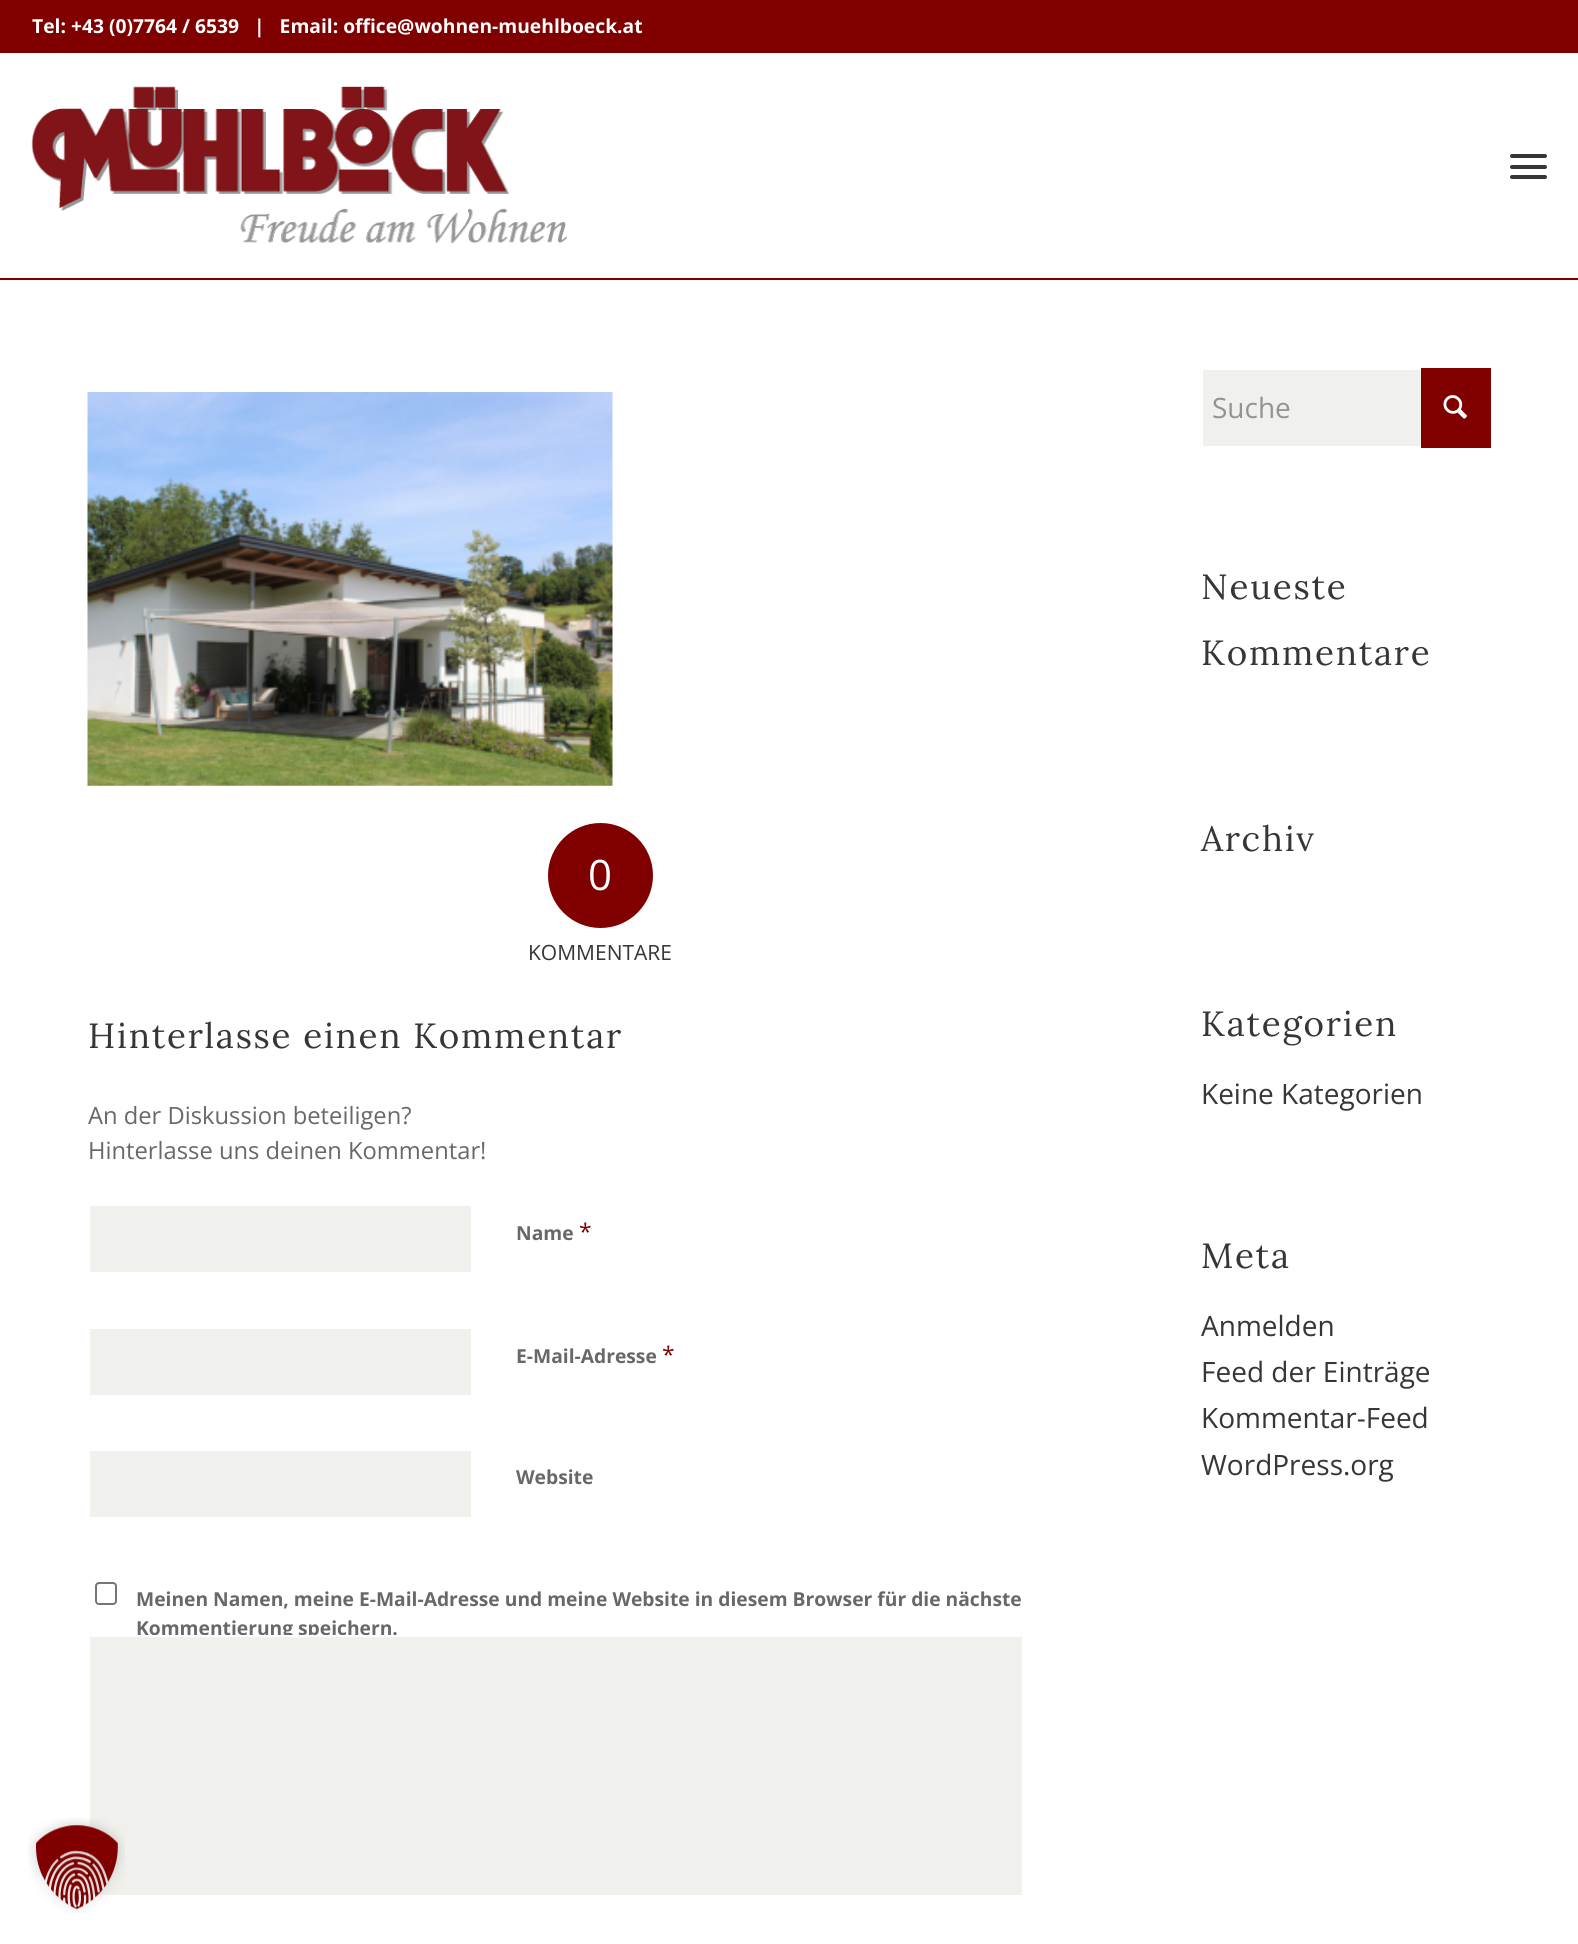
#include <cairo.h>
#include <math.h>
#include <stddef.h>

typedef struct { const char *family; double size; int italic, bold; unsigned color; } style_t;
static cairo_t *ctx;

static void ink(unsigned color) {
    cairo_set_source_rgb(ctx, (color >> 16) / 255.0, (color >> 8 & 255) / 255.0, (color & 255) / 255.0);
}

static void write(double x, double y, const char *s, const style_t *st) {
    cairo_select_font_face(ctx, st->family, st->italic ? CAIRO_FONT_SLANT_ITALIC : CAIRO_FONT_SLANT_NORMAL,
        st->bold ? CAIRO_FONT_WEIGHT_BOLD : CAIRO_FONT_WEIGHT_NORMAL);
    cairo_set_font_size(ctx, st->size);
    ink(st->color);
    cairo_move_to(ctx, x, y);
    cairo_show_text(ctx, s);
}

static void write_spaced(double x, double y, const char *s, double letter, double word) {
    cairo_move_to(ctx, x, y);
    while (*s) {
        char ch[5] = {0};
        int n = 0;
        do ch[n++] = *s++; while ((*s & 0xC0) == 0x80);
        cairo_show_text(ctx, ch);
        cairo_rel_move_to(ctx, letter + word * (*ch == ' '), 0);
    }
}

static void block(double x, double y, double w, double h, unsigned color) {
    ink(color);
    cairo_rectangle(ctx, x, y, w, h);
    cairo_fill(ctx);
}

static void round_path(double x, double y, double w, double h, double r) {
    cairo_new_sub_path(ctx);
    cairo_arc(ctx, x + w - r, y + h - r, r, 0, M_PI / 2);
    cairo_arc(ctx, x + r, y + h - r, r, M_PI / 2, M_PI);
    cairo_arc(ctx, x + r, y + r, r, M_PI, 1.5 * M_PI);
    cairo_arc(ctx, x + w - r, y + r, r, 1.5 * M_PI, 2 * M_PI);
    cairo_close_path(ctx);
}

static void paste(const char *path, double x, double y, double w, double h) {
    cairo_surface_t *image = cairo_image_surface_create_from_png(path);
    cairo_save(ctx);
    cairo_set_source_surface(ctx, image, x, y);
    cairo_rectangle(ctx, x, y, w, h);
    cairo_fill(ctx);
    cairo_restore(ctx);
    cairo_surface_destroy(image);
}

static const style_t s1 = {"Open Sans", 19.25, 0, 1, 0xffffff};
static const style_t s2 = {"Open Sans", 42, 0, 0, 0xffffff};
static const style_t s3 = {"Open Sans", 21, 0, 0, 0x363636};
static const style_t s4 = {"Open Sans", 23.75, 0, 0, 0x686868};
static const style_t s5 = {"Open Sans", 19.25, 0, 1, 0x686868};
static const style_t s6 = {"Open Sans", 23, 0, 0, 0x800000};
static const style_t s7 = {"Open Sans", 28, 0, 0, 0x939392};
static const style_t s8 = {"Open Sans", 28, 0, 0, 0x363636};

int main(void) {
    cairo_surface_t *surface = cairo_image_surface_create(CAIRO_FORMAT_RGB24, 1578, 1944);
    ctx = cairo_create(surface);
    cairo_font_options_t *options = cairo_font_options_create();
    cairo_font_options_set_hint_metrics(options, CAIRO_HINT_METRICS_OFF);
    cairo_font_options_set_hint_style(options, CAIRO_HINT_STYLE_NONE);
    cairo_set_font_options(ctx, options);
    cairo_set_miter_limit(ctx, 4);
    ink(0xffffff);
    cairo_paint(ctx);
    block(0, 278, 1578, 2, 0x800000);
    block(0, 0, 1578, 53, 0x800000);
    write(32, 33, "Tel: +43 (0)7764 / 6539", &s1);
    write(254, 33, "|   Email: office@wohnen-muehlboeck.at", &s1);
    paste("pic1.png", 31, 86, 536, 158);
    ink(0x363636);
    round_path(1510, 165, 37, 4, 2);
    cairo_fill(ctx);
    round_path(1510, 154, 37, 4, 2);
    cairo_fill(ctx);
    round_path(1510, 175, 37, 4, 2);
    cairo_fill(ctx);
    paste("pic2.png", 87, 392, 526, 394);
    ink(0x800000);
    cairo_arc(ctx, 600.5, 875.5, 52.5, 0, 2 * M_PI);
    cairo_fill(ctx);
    write(588, 890, "0", &s2);
    write(528, 960, "KOMMENTARE", &s3);
    cairo_select_font_face(ctx, "Lora", CAIRO_FONT_SLANT_NORMAL, CAIRO_FONT_WEIGHT_NORMAL);
    cairo_set_font_size(ctx, 35);
    write_spaced(88, 1048, "Hinterlasse einen Kommentar", 1.75, 0);
    write(88, 1124, "An der Diskussion beteiligen?", &s4);
    write(88, 1159, "Hinterlasse uns deinen Kommentar!", &s4);
    block(90, 1206, 381, 66, 0xf0f0ed);
    write(516, 1240, "Name", &s5);
    write(579, 1240, "*", &s6);
    block(90, 1329, 381, 66, 0xf0f0ed);
    write(516, 1363, "E-Mail-Adresse", &s5);
    write(662, 1363, "*", &s6);
    block(90, 1451, 381, 66, 0xf0f0ed);
    write(516, 1484, "Website", &s5);
    round_path(96, 1583, 20, 21, 3);
    ink(0x767676);
    cairo_stroke(ctx);
    write(136, 1606, "Meinen Namen, meine E-Mail-Adresse und meine Website in diesem Browser für die nächste", &s5);
    write(136, 1635, "Kommentierung speichern.", &s5);
    ink(0xf0f0ed);
    cairo_rectangle(ctx, 89, 1636, 934, 260);
    cairo_fill_preserve(ctx);
    ink(0xffffff);
    cairo_stroke(ctx);
    block(1421, 368, 70, 80, 0x800000);
    block(1203, 370, 218, 76, 0xf0f0ed);
    write(1212, 418, "Suche", &s7);
    paste("pic3.png", 1443, 395, 24, 24);
    cairo_select_font_face(ctx, "Lora", CAIRO_FONT_SLANT_NORMAL, CAIRO_FONT_WEIGHT_NORMAL);
    cairo_set_font_size(ctx, 35);
    ink(0x363636);
    write_spaced(1201, 599, "Neueste", 1.75, 0);
    write_spaced(1201, 665, "Kommentare", 1.75, 0);
    write_spaced(1201, 851, "Archiv", 1.75, 0);
    write_spaced(1201, 1036, "Kategorien", 1.75, 0);
    write(1201, 1104, "Keine Kategorien", &s8);
    cairo_select_font_face(ctx, "Lora", CAIRO_FONT_SLANT_NORMAL, CAIRO_FONT_WEIGHT_NORMAL);
    cairo_set_font_size(ctx, 35);
    write_spaced(1201, 1268, "Meta", 1.75, 0);
    write(1201, 1336, "Anmelden", &s8);
    write(1201, 1382, "Feed der Einträge", &s8);
    write(1201, 1428, "Kommentar-Feed", &s8);
    write(1201, 1475, "WordPress.org", &s8);
    paste("pic4.png", 28, 1818, 97, 95);
    cairo_surface_write_to_png(surface, "screenshot.png");
    cairo_font_options_destroy(options);
    cairo_destroy(ctx);
    cairo_surface_destroy(surface);
    return 0;
}
